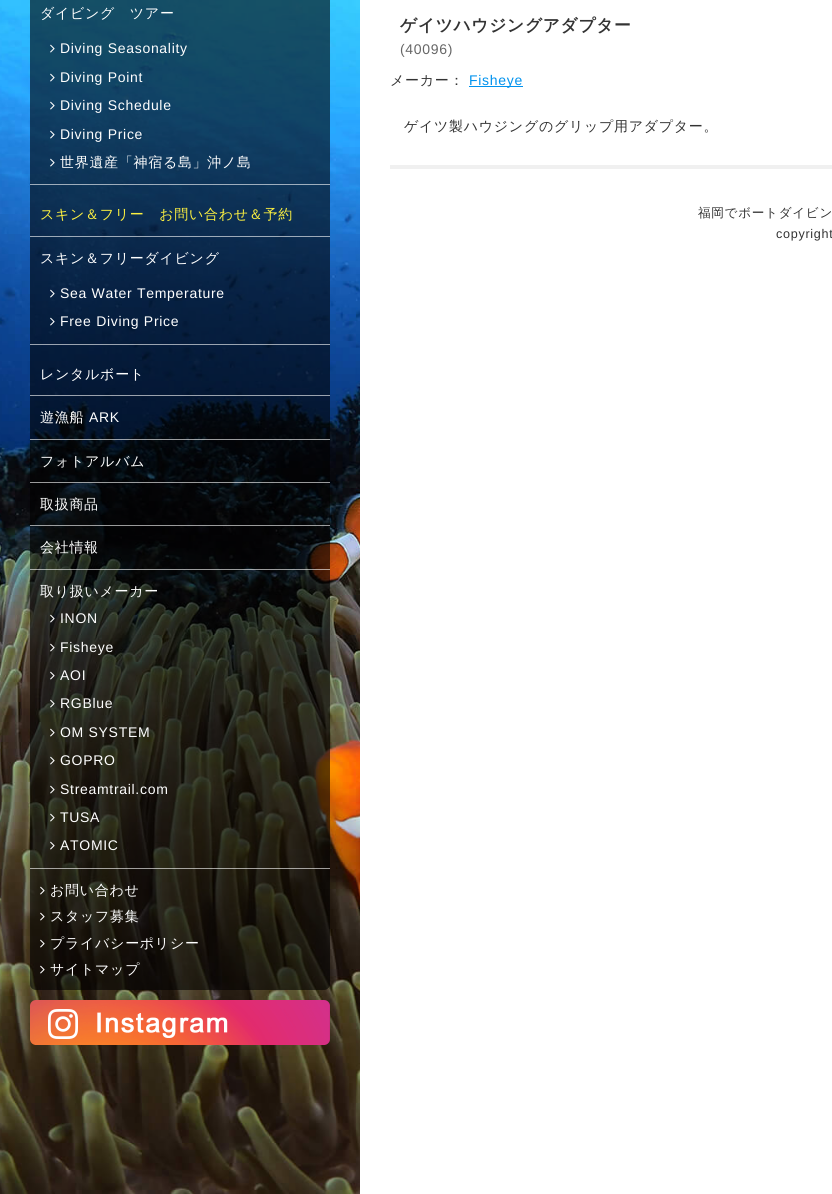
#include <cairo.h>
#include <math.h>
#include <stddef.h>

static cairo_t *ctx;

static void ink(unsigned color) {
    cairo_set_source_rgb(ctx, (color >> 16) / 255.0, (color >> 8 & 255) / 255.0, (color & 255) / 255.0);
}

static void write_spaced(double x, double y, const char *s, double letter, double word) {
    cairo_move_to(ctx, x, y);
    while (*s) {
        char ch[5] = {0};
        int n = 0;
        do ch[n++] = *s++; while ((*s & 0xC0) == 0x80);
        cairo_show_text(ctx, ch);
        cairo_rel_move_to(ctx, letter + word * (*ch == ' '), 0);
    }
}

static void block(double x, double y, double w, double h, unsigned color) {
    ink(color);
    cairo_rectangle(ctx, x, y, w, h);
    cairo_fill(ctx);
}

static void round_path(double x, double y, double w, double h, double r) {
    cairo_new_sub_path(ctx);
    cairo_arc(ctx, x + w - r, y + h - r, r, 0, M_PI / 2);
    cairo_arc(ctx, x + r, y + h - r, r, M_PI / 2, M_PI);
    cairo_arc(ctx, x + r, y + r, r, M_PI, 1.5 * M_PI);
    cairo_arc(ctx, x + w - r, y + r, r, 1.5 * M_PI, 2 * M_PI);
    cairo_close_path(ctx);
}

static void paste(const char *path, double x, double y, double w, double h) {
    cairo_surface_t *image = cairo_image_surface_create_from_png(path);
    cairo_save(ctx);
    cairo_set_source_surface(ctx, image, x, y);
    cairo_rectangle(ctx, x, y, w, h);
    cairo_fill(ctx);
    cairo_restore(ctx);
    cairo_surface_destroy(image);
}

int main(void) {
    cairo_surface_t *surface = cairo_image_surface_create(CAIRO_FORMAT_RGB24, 832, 1194);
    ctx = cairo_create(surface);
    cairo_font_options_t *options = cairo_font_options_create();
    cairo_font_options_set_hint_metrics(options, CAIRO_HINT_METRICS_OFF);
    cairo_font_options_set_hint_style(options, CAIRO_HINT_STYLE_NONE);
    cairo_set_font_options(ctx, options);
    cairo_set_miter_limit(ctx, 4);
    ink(0xffffff);
    cairo_paint(ctx);
    paste("pic1.png", 0, 0, 360, 1194);
    cairo_set_source_rgba(ctx, 0, 0, 0, 0.6);
    round_path(30, -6, 300, 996, 6);
    cairo_fill(ctx);
    cairo_select_font_face(ctx, "WenQuanYi Zen Hei Medium", CAIRO_FONT_SLANT_NORMAL, CAIRO_FONT_WEIGHT_NORMAL);
    cairo_set_font_size(ctx, 14);
    ink(0xfefefe);
    write_spaced(40, 18, "ダイビング　ツアー", 0.7, 0);
    cairo_set_source_rgba(ctx, 1, 1, 1, 0.6);
    cairo_rectangle(ctx, 30, 184, 300, 1);
    cairo_fill(ctx);
    paste("pic2.png", 50, 44, 5, 9);
    cairo_select_font_face(ctx, "Liberation Sans", CAIRO_FONT_SLANT_NORMAL, CAIRO_FONT_WEIGHT_NORMAL);
    ink(0xfefefe);
    write_spaced(60, 53, "Diving Seasonality", 0.7, 0);
    paste("pic3.png", 50, 73, 5, 9);
    write_spaced(60, 82, "Diving Point", 0.7, 0);
    paste("pic4.png", 50, 101, 5, 9);
    write_spaced(60, 110, "Diving Schedule", 0.7, 0);
    paste("pic5.png", 50, 130, 5, 9);
    write_spaced(60, 139, "Diving Price", 0.7, 0);
    paste("pic6.png", 50, 158, 5, 9);
    cairo_select_font_face(ctx, "WenQuanYi Zen Hei Medium", CAIRO_FONT_SLANT_NORMAL, CAIRO_FONT_WEIGHT_NORMAL);
    write_spaced(60, 167, "世界遺産「神宿る島」沖ノ島", 0.7, 0);
    cairo_set_source_rgba(ctx, 1, 1, 1, 0.6);
    cairo_rectangle(ctx, 30, 236, 300, 1);
    cairo_fill(ctx);
    ink(0xfcf040);
    write_spaced(40, 219, "スキン＆フリー　お問い合わせ＆予約", 0.7, 0);
    ink(0xfefefe);
    write_spaced(40, 263, "スキン＆フリーダイビング", 0.7, 0);
    cairo_set_source_rgba(ctx, 1, 1, 1, 0.6);
    cairo_rectangle(ctx, 30, 344, 300, 1);
    cairo_fill(ctx);
    paste("pic7.png", 50, 289, 5, 9);
    cairo_select_font_face(ctx, "Liberation Sans", CAIRO_FONT_SLANT_NORMAL, CAIRO_FONT_WEIGHT_NORMAL);
    ink(0xfefefe);
    write_spaced(60, 298, "Sea Water Temperature", 0.7, 0);
    paste("pic8.png", 50, 317, 5, 9);
    write_spaced(60, 326, "Free Diving Price", 0.7, 0);
    cairo_set_source_rgba(ctx, 1, 1, 1, 0.6);
    cairo_rectangle(ctx, 30, 395, 300, 1);
    cairo_fill(ctx);
    cairo_select_font_face(ctx, "WenQuanYi Zen Hei Medium", CAIRO_FONT_SLANT_NORMAL, CAIRO_FONT_WEIGHT_NORMAL);
    ink(0xfefefe);
    write_spaced(40, 379, "レンタルボート", 0.7, 0);
    cairo_set_source_rgba(ctx, 1, 1, 1, 0.6);
    cairo_rectangle(ctx, 30, 439, 300, 1);
    cairo_fill(ctx);
    ink(0xfefefe);
    write_spaced(40, 422, "遊漁船", 0.7, 0);
    cairo_select_font_face(ctx, "Liberation Sans", CAIRO_FONT_SLANT_NORMAL, CAIRO_FONT_WEIGHT_NORMAL);
    write_spaced(89, 422, "ARK", 0.7, 0);
    cairo_set_source_rgba(ctx, 1, 1, 1, 0.6);
    cairo_rectangle(ctx, 30, 482, 300, 1);
    cairo_fill(ctx);
    cairo_select_font_face(ctx, "WenQuanYi Zen Hei Medium", CAIRO_FONT_SLANT_NORMAL, CAIRO_FONT_WEIGHT_NORMAL);
    ink(0xfefefe);
    write_spaced(40, 466, "フォトアルバム", 0.7, 0);
    cairo_set_source_rgba(ctx, 1, 1, 1, 0.6);
    cairo_rectangle(ctx, 30, 525, 300, 1);
    cairo_fill(ctx);
    ink(0xfefefe);
    write_spaced(40, 509, "取扱商品", 0.7, 0);
    cairo_set_source_rgba(ctx, 1, 1, 1, 0.6);
    cairo_rectangle(ctx, 30, 569, 300, 1);
    cairo_fill(ctx);
    ink(0xfefefe);
    write_spaced(40, 552, "会社情報", 0.7, 0);
    write_spaced(40, 596, "取り扱いメーカー", 0.7, 0);
    cairo_set_source_rgba(ctx, 1, 1, 1, 0.6);
    cairo_rectangle(ctx, 30, 868, 300, 1);
    cairo_fill(ctx);
    paste("pic9.png", 50, 614, 5, 9);
    cairo_select_font_face(ctx, "Liberation Sans", CAIRO_FONT_SLANT_NORMAL, CAIRO_FONT_WEIGHT_NORMAL);
    ink(0xfefefe);
    write_spaced(60, 623, "INON", 0.7, 0);
    paste("pic10.png", 50, 643, 5, 9);
    write_spaced(60, 652, "Fisheye", 0.7, 0);
    paste("pic11.png", 50, 671, 5, 9);
    write_spaced(60, 680, "AOI", 0.7, 0);
    paste("pic12.png", 50, 699, 5, 9);
    write_spaced(60, 708, "RGBlue", 0.7, 0);
    paste("pic13.png", 50, 728, 5, 9);
    write_spaced(60, 737, "OM SYSTEM", 0.7, 0);
    paste("pic14.png", 50, 756, 5, 9);
    write_spaced(60, 765, "GOPRO", 0.7, 0);
    paste("pic15.png", 50, 785, 5, 9);
    write_spaced(60, 794, "Streamtrail.com", 0.7, 0);
    paste("pic16.png", 50, 813, 5, 9);
    write_spaced(60, 822, "TUSA", 0.7, 0);
    paste("pic17.png", 50, 841, 5, 9);
    write_spaced(60, 850, "ATOMIC", 0.7, 0);
    paste("pic18.png", 40, 886, 5, 9);
    cairo_select_font_face(ctx, "WenQuanYi Zen Hei Medium", CAIRO_FONT_SLANT_NORMAL, CAIRO_FONT_WEIGHT_NORMAL);
    write_spaced(50, 895, "お問い合わせ", 0.7, 0);
    paste("pic19.png", 40, 912, 5, 9);
    write_spaced(50, 921, "スタッフ募集", 0.7, 0);
    paste("pic20.png", 40, 939, 5, 9);
    write_spaced(50, 948, "プライバシーポリシー", 0.7, 0);
    paste("pic21.png", 40, 965, 5, 9);
    write_spaced(50, 974, "サイトマップ", 0.7, 0);
    paste("pic22.png", 30, 1000, 300, 45);
    block(390, 165, 442, 4, 0xf0f0f0);
    cairo_select_font_face(ctx, "WenQuanYi Zen Hei", CAIRO_FONT_SLANT_NORMAL, CAIRO_FONT_WEIGHT_BOLD);
    cairo_set_font_size(ctx, 16.75);
    ink(0x333333);
    write_spaced(400, 31, "ゲイツハウジングアダプター", 0.7, 0);
    cairo_select_font_face(ctx, "Liberation Sans", CAIRO_FONT_SLANT_NORMAL, CAIRO_FONT_WEIGHT_NORMAL);
    cairo_set_font_size(ctx, 14);
    ink(0x666666);
    write_spaced(400, 54, "(40096)", 0.7, 0);
    cairo_select_font_face(ctx, "WenQuanYi Zen Hei Medium", CAIRO_FONT_SLANT_NORMAL, CAIRO_FONT_WEIGHT_NORMAL);
    ink(0x333333);
    write_spaced(390, 85, "メーカー：", 0.7, 0);
    block(469, 86, 54, 1, 0x0092ee);
    cairo_select_font_face(ctx, "Liberation Sans", CAIRO_FONT_SLANT_NORMAL, CAIRO_FONT_WEIGHT_NORMAL);
    write_spaced(469, 85, "Fisheye", 0.7, 0);
    cairo_select_font_face(ctx, "WenQuanYi Zen Hei Medium", CAIRO_FONT_SLANT_NORMAL, CAIRO_FONT_WEIGHT_NORMAL);
    ink(0x333333);
    write_spaced(404, 131, "ゲイツ製ハウジングのグリップ用アダプター。", 0.7, 0);
    cairo_set_font_size(ctx, 12.6);
    write_spaced(698, 217, "福岡でボートダイビン", 0.7, 0);
    cairo_select_font_face(ctx, "Liberation Sans", CAIRO_FONT_SLANT_NORMAL, CAIRO_FONT_WEIGHT_NORMAL);
    write_spaced(776, 238, "copyright", 0.7, 0);
    cairo_surface_write_to_png(surface, "screenshot.png");
    cairo_font_options_destroy(options);
    cairo_destroy(ctx);
    cairo_surface_destroy(surface);
    return 0;
}
